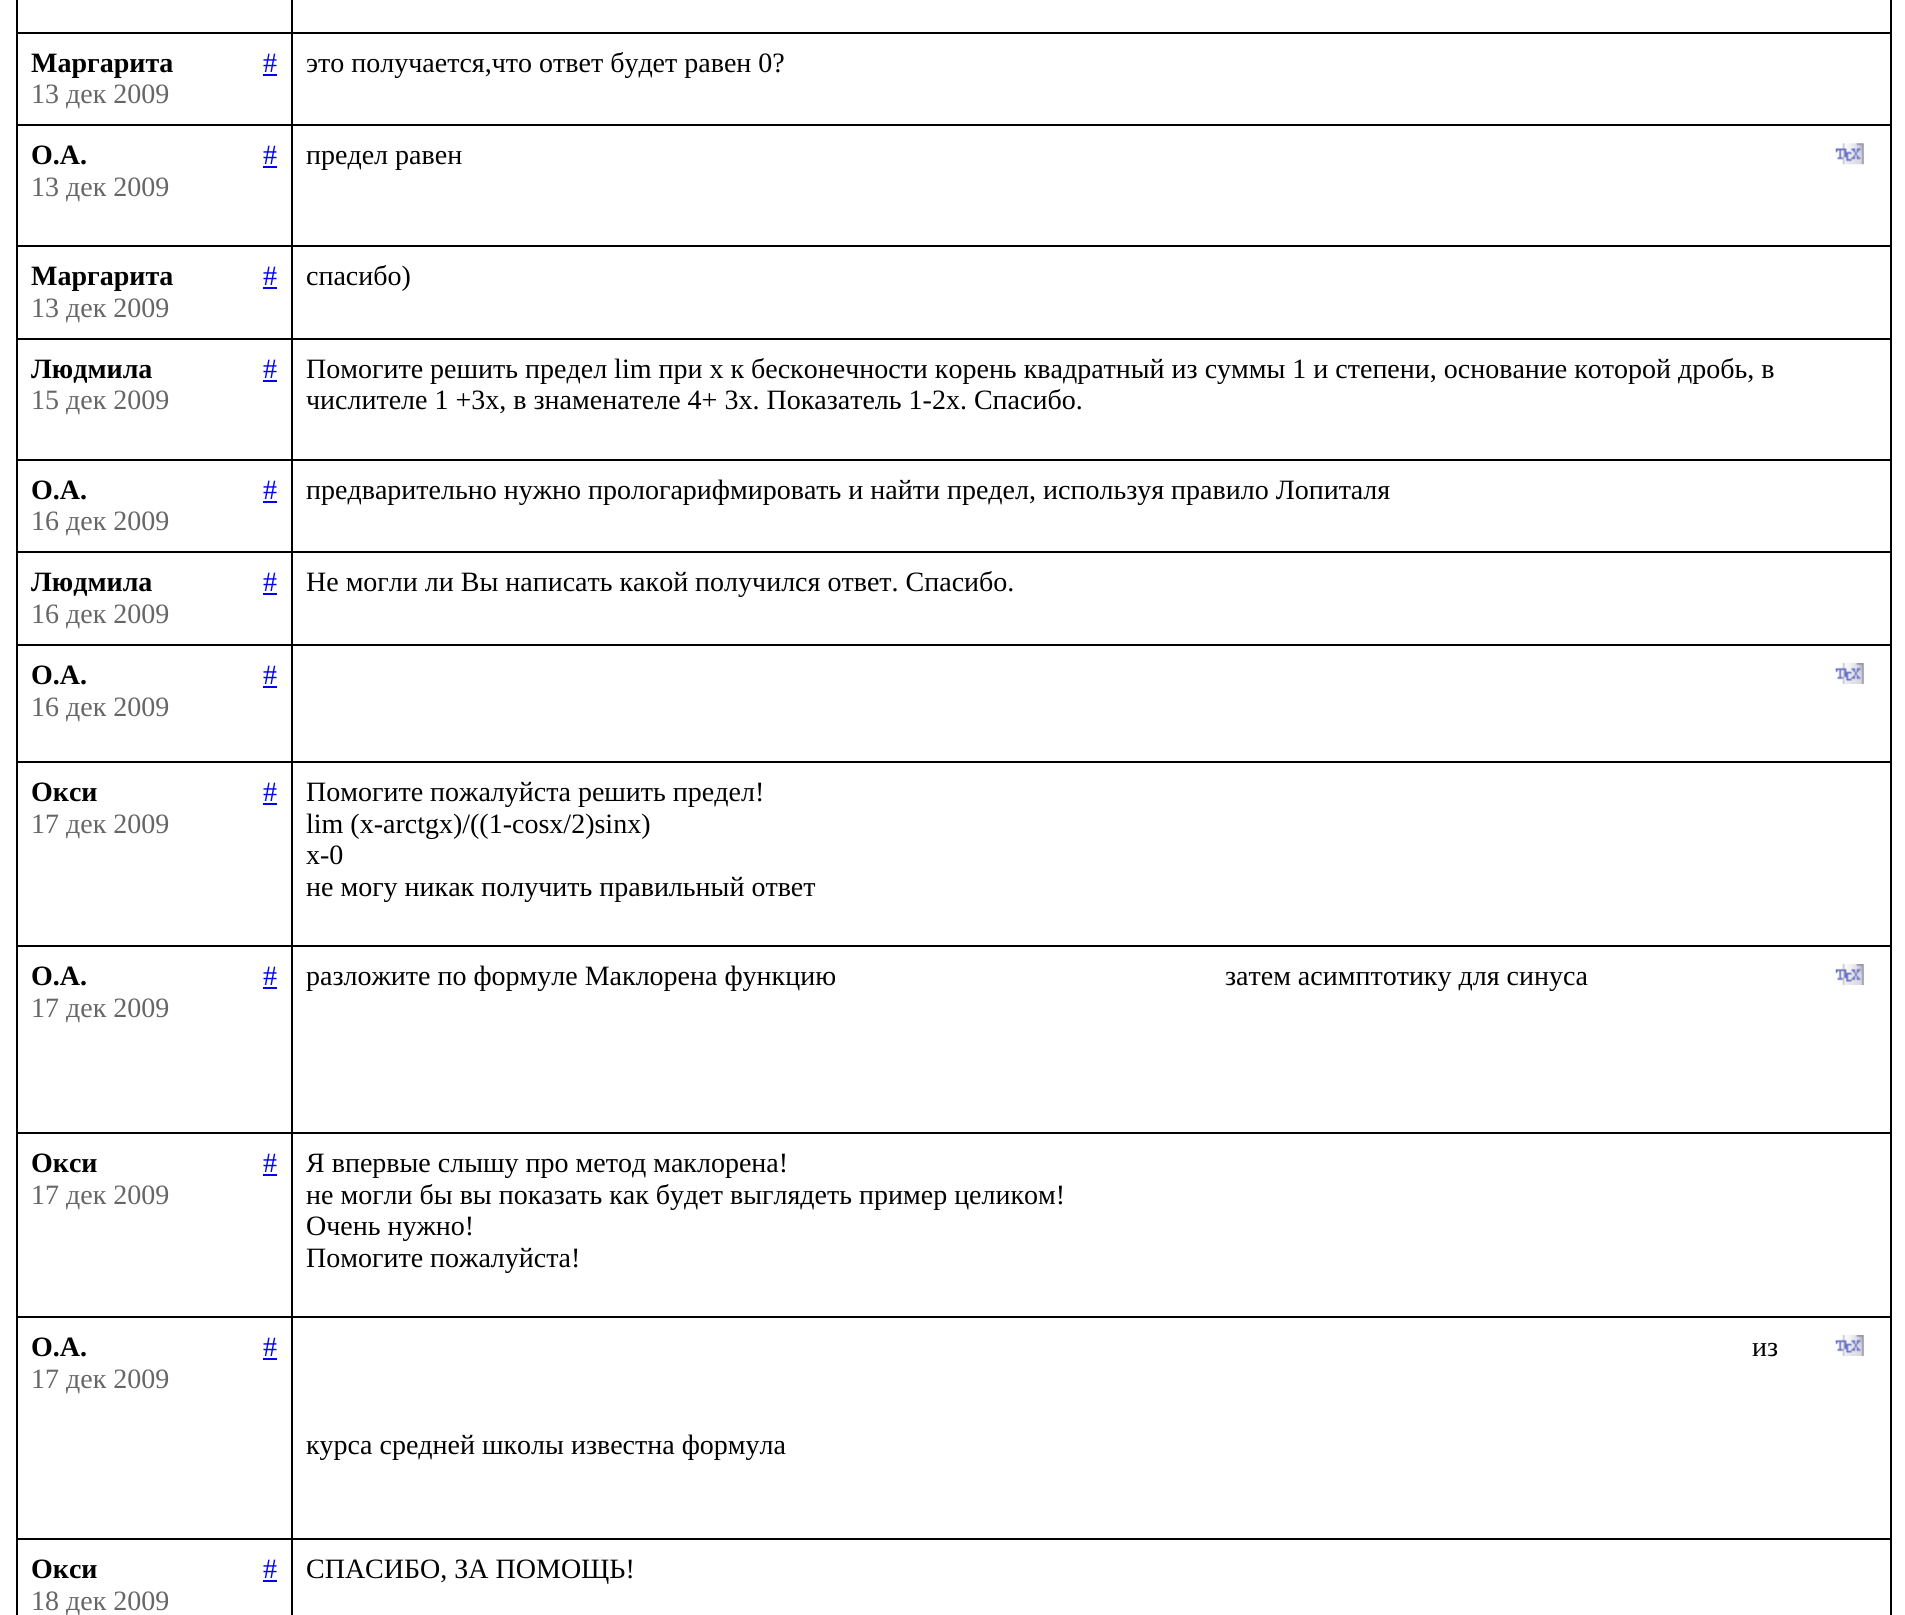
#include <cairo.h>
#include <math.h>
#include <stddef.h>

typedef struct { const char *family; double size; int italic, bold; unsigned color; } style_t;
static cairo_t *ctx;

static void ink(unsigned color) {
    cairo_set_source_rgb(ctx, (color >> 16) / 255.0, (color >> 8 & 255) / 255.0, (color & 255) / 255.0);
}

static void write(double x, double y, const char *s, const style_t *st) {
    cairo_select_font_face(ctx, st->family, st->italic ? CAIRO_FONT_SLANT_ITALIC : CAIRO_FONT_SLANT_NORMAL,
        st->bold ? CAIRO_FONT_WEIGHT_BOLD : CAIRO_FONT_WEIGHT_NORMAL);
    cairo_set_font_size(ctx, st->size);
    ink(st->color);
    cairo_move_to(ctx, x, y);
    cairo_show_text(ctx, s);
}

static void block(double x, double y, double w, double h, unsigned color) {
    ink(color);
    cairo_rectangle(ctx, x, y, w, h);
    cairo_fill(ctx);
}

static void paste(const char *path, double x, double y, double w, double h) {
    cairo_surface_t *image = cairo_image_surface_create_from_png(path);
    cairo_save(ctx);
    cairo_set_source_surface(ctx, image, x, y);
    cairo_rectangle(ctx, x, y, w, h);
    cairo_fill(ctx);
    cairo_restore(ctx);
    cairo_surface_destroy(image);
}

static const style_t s1 = {"Liberation Serif", 28, 0, 1, 0x000000};
static const style_t s2 = {"Liberation Serif", 28, 0, 0, 0x0000ff};
static const style_t s3 = {"Liberation Serif", 28, 0, 0, 0x666666};
static const style_t s4 = {"Liberation Serif", 28, 0, 0, 0x000000};

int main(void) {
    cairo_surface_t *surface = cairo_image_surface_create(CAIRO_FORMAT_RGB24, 1905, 1615);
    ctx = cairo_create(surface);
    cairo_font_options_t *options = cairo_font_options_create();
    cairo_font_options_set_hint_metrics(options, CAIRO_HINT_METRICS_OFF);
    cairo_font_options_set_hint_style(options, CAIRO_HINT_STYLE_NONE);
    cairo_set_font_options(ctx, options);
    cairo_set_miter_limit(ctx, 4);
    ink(0xffffff);
    cairo_paint(ctx);
    block(291, 32, 1601, 2, 0x000000);
    block(291, 124, 1601, 2, 0x000000);
    block(291, 245, 1601, 2, 0x000000);
    block(291, 338, 1601, 2, 0x000000);
    block(291, 459, 1601, 2, 0x000000);
    block(291, 551, 1601, 2, 0x000000);
    block(291, 644, 1601, 2, 0x000000);
    block(291, 761, 1601, 2, 0x000000);
    block(291, 945, 1601, 2, 0x000000);
    block(291, 1132, 1601, 2, 0x000000);
    block(291, 1316, 1601, 2, 0x000000);
    block(291, 1538, 1601, 2, 0x000000);
    block(291, 1538, 2, 77, 0x000000);
    block(16, 1538, 276, 2, 0x000000);
    block(291, 1316, 2, 224, 0x000000);
    block(16, 1316, 276, 2, 0x000000);
    block(291, 1132, 2, 186, 0x000000);
    block(16, 1132, 276, 2, 0x000000);
    block(291, 945, 2, 189, 0x000000);
    block(16, 945, 276, 2, 0x000000);
    block(291, 761, 2, 186, 0x000000);
    block(16, 761, 276, 2, 0x000000);
    block(291, 644, 2, 119, 0x000000);
    block(16, 644, 276, 2, 0x000000);
    block(291, 551, 2, 95, 0x000000);
    block(16, 551, 276, 2, 0x000000);
    block(291, 459, 2, 94, 0x000000);
    block(16, 459, 276, 2, 0x000000);
    block(291, 338, 2, 122, 0x000000);
    block(16, 338, 276, 2, 0x000000);
    block(291, 245, 2, 95, 0x000000);
    block(16, 245, 276, 2, 0x000000);
    block(291, 124, 2, 123, 0x000000);
    block(16, 124, 276, 2, 0x000000);
    block(291, 32, 2, 94, 0x000000);
    block(16, 32, 276, 2, 0x000000);
    block(291, 0, 2, 33, 0x000000);
    block(16, 1538, 2, 77, 0x000000);
    block(16, 1316, 2, 224, 0x000000);
    block(16, 1132, 2, 186, 0x000000);
    block(16, 945, 2, 189, 0x000000);
    block(16, 761, 2, 186, 0x000000);
    block(16, 644, 2, 119, 0x000000);
    block(16, 551, 2, 95, 0x000000);
    block(16, 459, 2, 94, 0x000000);
    block(16, 338, 2, 122, 0x000000);
    block(16, 245, 2, 95, 0x000000);
    block(16, 124, 2, 123, 0x000000);
    block(16, 0, 2, 126, 0x000000);
    write(31, 72, "Маргарита", &s1);
    write(263, 72, "#", &s2);
    block(263, 74, 14, 2, 0x0000ff);
    write(31, 103, "13 дек 2009", &s3);
    block(1890, 1538, 2, 77, 0x000000);
    block(1890, 1316, 2, 224, 0x000000);
    block(1890, 1132, 2, 186, 0x000000);
    block(1890, 945, 2, 189, 0x000000);
    block(1890, 761, 2, 186, 0x000000);
    block(1890, 644, 2, 119, 0x000000);
    block(1890, 551, 2, 95, 0x000000);
    block(1890, 459, 2, 94, 0x000000);
    block(1890, 338, 2, 122, 0x000000);
    block(1890, 245, 2, 95, 0x000000);
    block(1890, 124, 2, 123, 0x000000);
    block(1890, 0, 2, 126, 0x000000);
    write(306, 72, "это получается,что ответ будет равен 0?", &s4);
    write(31, 164, "О.А.", &s1);
    write(263, 164, "#", &s2);
    block(263, 166, 14, 2, 0x0000ff);
    write(31, 196, "13 дек 2009", &s3);
    write(306, 164, "предел равен", &s4);
    paste("pic1.png", 1835, 143, 29, 22);
    write(31, 285, "Маргарита", &s1);
    write(263, 285, "#", &s2);
    block(263, 287, 14, 2, 0x0000ff);
    write(31, 317, "13 дек 2009", &s3);
    write(306, 285, "спасибо)", &s4);
    write(31, 378, "Людмила", &s1);
    write(263, 378, "#", &s2);
    block(263, 380, 14, 2, 0x0000ff);
    write(31, 409, "15 дек 2009", &s3);
    write(306, 378, "Помогите решить предел lim при х к бесконечности корень квадратный из суммы 1 и степени, основание которой дробь, в", &s4);
    write(306, 409, "числителе 1 +3х, в знаменателе 4+ 3х. Показатель 1-2х. Спасибо.", &s4);
    write(31, 499, "О.А.", &s1);
    write(263, 499, "#", &s2);
    block(263, 501, 14, 2, 0x0000ff);
    write(31, 530, "16 дек 2009", &s3);
    write(306, 499, "предварительно нужно прологарифмировать и найти предел, используя правило Лопиталя", &s4);
    write(31, 591, "Людмила", &s1);
    write(263, 591, "#", &s2);
    block(263, 593, 14, 2, 0x0000ff);
    write(31, 623, "16 дек 2009", &s3);
    write(306, 591, "Не могли ли Вы написать какой получился ответ. Спасибо.", &s4);
    write(31, 684, "О.А.", &s1);
    write(263, 684, "#", &s2);
    block(263, 686, 14, 2, 0x0000ff);
    write(31, 716, "16 дек 2009", &s3);
    paste("pic2.png", 1835, 663, 29, 21);
    write(31, 801, "Окси", &s1);
    write(263, 801, "#", &s2);
    block(263, 803, 14, 2, 0x0000ff);
    write(31, 833, "17 дек 2009", &s3);
    write(306, 801, "Помогите пожалуйста решить предел!", &s4);
    write(306, 833, "lim (x-arctgx)/((1-cosx/2)sinx)", &s4);
    write(306, 864, "x-0", &s4);
    write(306, 896, "не могу никак получить правильный ответ", &s4);
    write(31, 985, "О.А.", &s1);
    write(263, 985, "#", &s2);
    block(263, 987, 14, 2, 0x0000ff);
    write(31, 1017, "17 дек 2009", &s3);
    write(306, 985, "разложите по формуле Маклорена функцию", &s4);
    write(1225, 985, "затем асимптотику для синуса", &s4);
    paste("pic2.png", 1835, 964, 29, 21);
    write(31, 1172, "Окси", &s1);
    write(263, 1172, "#", &s2);
    block(263, 1174, 14, 2, 0x0000ff);
    write(31, 1204, "17 дек 2009", &s3);
    write(306, 1172, "Я впервые слышу про метод маклорена!", &s4);
    write(306, 1204, "не могли бы вы показать как будет выглядеть пример целиком!", &s4);
    write(306, 1235, "Очень нужно!", &s4);
    write(306, 1267, "Помогите пожалуйста!", &s4);
    write(31, 1356, "О.А.", &s1);
    write(263, 1356, "#", &s2);
    block(263, 1358, 14, 2, 0x0000ff);
    write(31, 1388, "17 дек 2009", &s3);
    write(1752, 1356, "из", &s4);
    write(306, 1454, "курса средней школы известна формула", &s4);
    paste("pic2.png", 1835, 1335, 29, 21);
    write(31, 1578, "Окси", &s1);
    write(263, 1578, "#", &s2);
    block(263, 1580, 14, 2, 0x0000ff);
    write(31, 1610, "18 дек 2009", &s3);
    write(306, 1578, "СПАСИБО, ЗА ПОМОЩЬ!", &s4);
    cairo_surface_write_to_png(surface, "screenshot.png");
    cairo_font_options_destroy(options);
    cairo_destroy(ctx);
    cairo_surface_destroy(surface);
    return 0;
}
